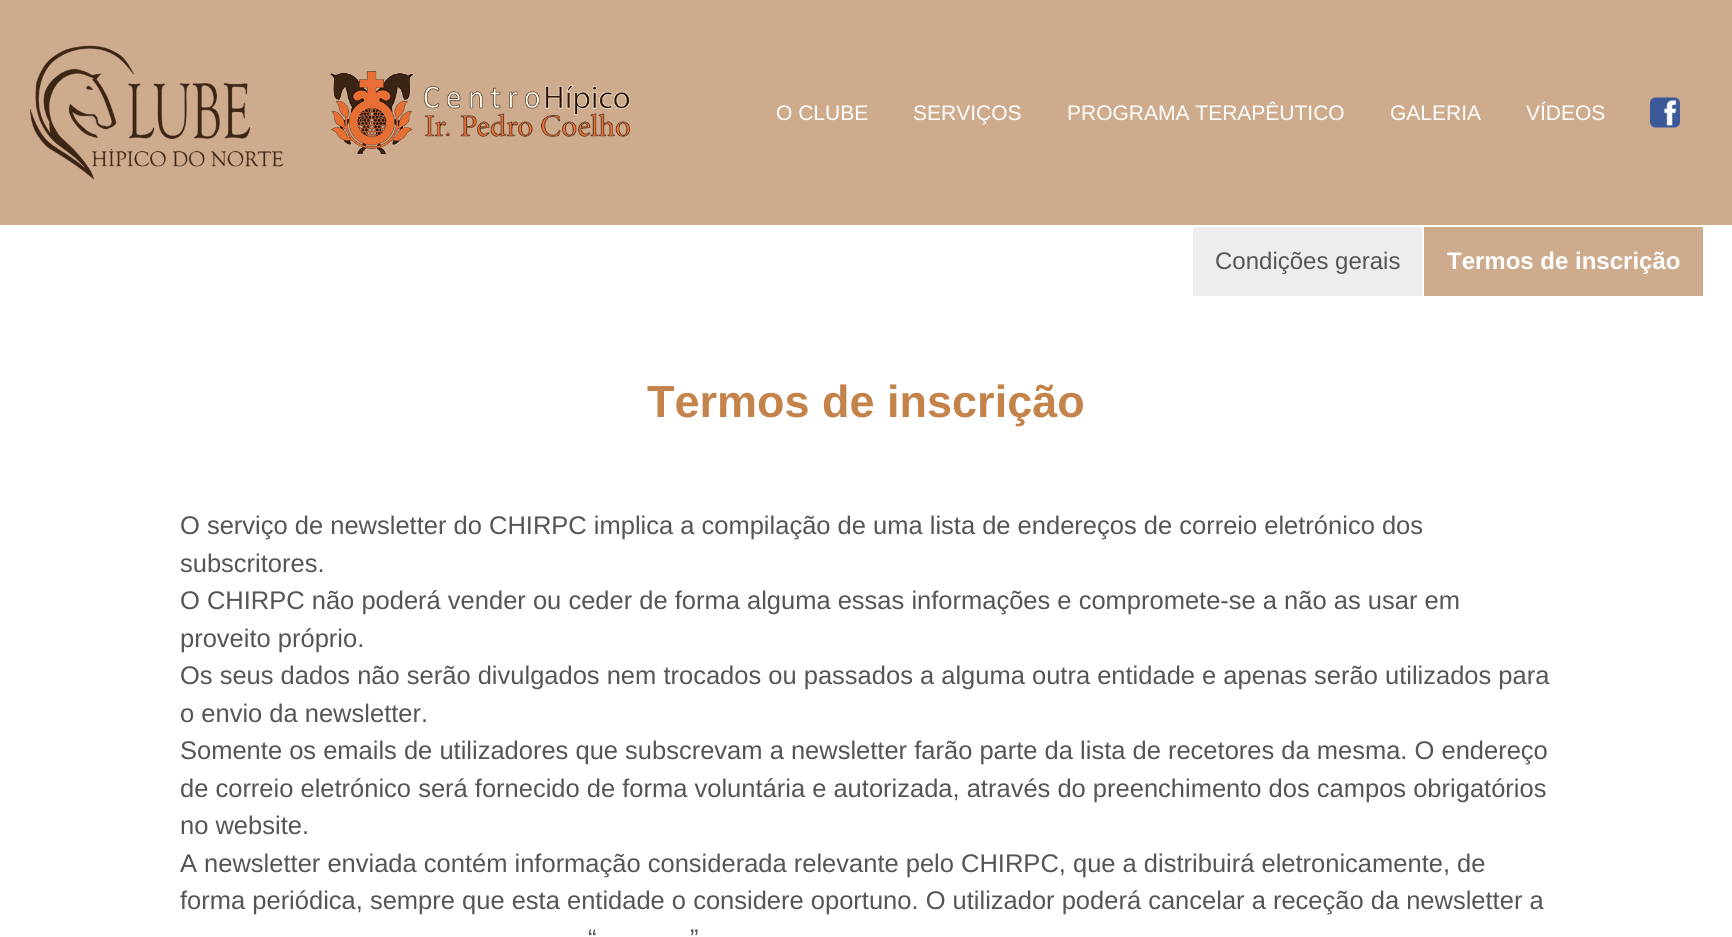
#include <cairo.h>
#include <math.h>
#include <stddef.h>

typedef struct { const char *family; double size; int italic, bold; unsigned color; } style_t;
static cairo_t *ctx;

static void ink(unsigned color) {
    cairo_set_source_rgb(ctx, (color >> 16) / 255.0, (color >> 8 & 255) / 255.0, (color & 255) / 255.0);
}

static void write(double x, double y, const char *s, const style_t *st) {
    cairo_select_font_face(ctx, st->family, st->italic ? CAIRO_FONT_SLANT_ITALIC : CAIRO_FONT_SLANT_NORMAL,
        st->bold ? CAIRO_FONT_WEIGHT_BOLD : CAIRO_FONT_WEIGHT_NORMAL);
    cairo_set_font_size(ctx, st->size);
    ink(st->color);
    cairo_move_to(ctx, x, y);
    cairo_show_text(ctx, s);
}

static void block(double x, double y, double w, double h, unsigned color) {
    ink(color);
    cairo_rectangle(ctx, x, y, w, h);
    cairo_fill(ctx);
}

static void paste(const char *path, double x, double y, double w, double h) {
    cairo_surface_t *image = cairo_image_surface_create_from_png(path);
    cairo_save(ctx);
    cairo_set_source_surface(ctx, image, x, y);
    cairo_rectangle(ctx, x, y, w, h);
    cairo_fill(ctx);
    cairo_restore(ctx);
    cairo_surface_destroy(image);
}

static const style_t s1 = {"Liberation Sans", 21, 0, 0, 0xffffff};
static const style_t s2 = {"Liberation Sans", 24, 0, 0, 0x555555};
static const style_t s3 = {"Liberation Sans", 24, 0, 1, 0xffffff};
static const style_t s4 = {"Liberation Sans", 45, 0, 1, 0xc4834b};
static const style_t s5 = {"Liberation Sans", 25.5, 0, 0, 0x555555};

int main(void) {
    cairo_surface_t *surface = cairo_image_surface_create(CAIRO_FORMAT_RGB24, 1732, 937);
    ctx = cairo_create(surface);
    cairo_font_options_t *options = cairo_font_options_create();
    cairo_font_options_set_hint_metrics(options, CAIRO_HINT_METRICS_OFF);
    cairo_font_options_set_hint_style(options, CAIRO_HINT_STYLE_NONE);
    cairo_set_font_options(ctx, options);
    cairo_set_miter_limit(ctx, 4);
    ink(0xffffff);
    cairo_paint(ctx);
    block(0, 0, 1732, 225, 0xceab8d);
    paste("pic1.png", 30, 45, 600, 135);
    write(776, 120, "O CLUBE", &s1);
    write(913, 120, "SERVIÇOS", &s1);
    write(1067, 120, "PROGRAMA TERAPÊUTICO", &s1);
    write(1390, 120, "GALERIA", &s1);
    write(1526, 120, "VÍDEOS", &s1);
    paste("pic2.png", 1650, 97, 30, 31);
    block(1193, 227, 229, 69, 0xededed);
    write(1215, 269, "Condições gerais", &s2);
    block(1424, 227, 279, 69, 0xceab8d);
    write(1447, 269, "Termos de inscrição", &s3);
    write(647, 417, "Termos de inscrição", &s4);
    write(180, 534, "O serviço de newsletter do CHIRPC implica a compilação de uma lista de endereços de correio eletrónico dos", &s5);
    write(180, 572, "subscritores.", &s5);
    write(180, 609, "O CHIRPC não poderá vender ou ceder de forma alguma essas informações e compromete-se a não as usar em", &s5);
    write(180, 647, "proveito próprio.", &s5);
    write(180, 684, "Os seus dados não serão divulgados nem trocados ou passados a alguma outra entidade e apenas serão utilizados para", &s5);
    write(180, 722, "o envio da newsletter.", &s5);
    write(180, 759, "Somente os emails de utilizadores que subscrevam a newsletter farão parte da lista de recetores da mesma. O endereço", &s5);
    write(180, 797, "de correio eletrónico será fornecido de forma voluntária e autorizada, através do preenchimento dos campos obrigatórios", &s5);
    write(180, 834, "no website.", &s5);
    write(180, 872, "A newsletter enviada contém informação considerada relevante pelo CHIRPC, que a distribuirá eletronicamente, de", &s5);
    write(180, 909, "forma periódica, sempre que esta entidade o considere oportuno. O utilizador poderá cancelar a receção da newsletter a", &s5);
    write(588, 947, "“", &s5);
    write(690, 947, "”", &s5);
    cairo_surface_write_to_png(surface, "screenshot.png");
    cairo_font_options_destroy(options);
    cairo_destroy(ctx);
    cairo_surface_destroy(surface);
    return 0;
}
